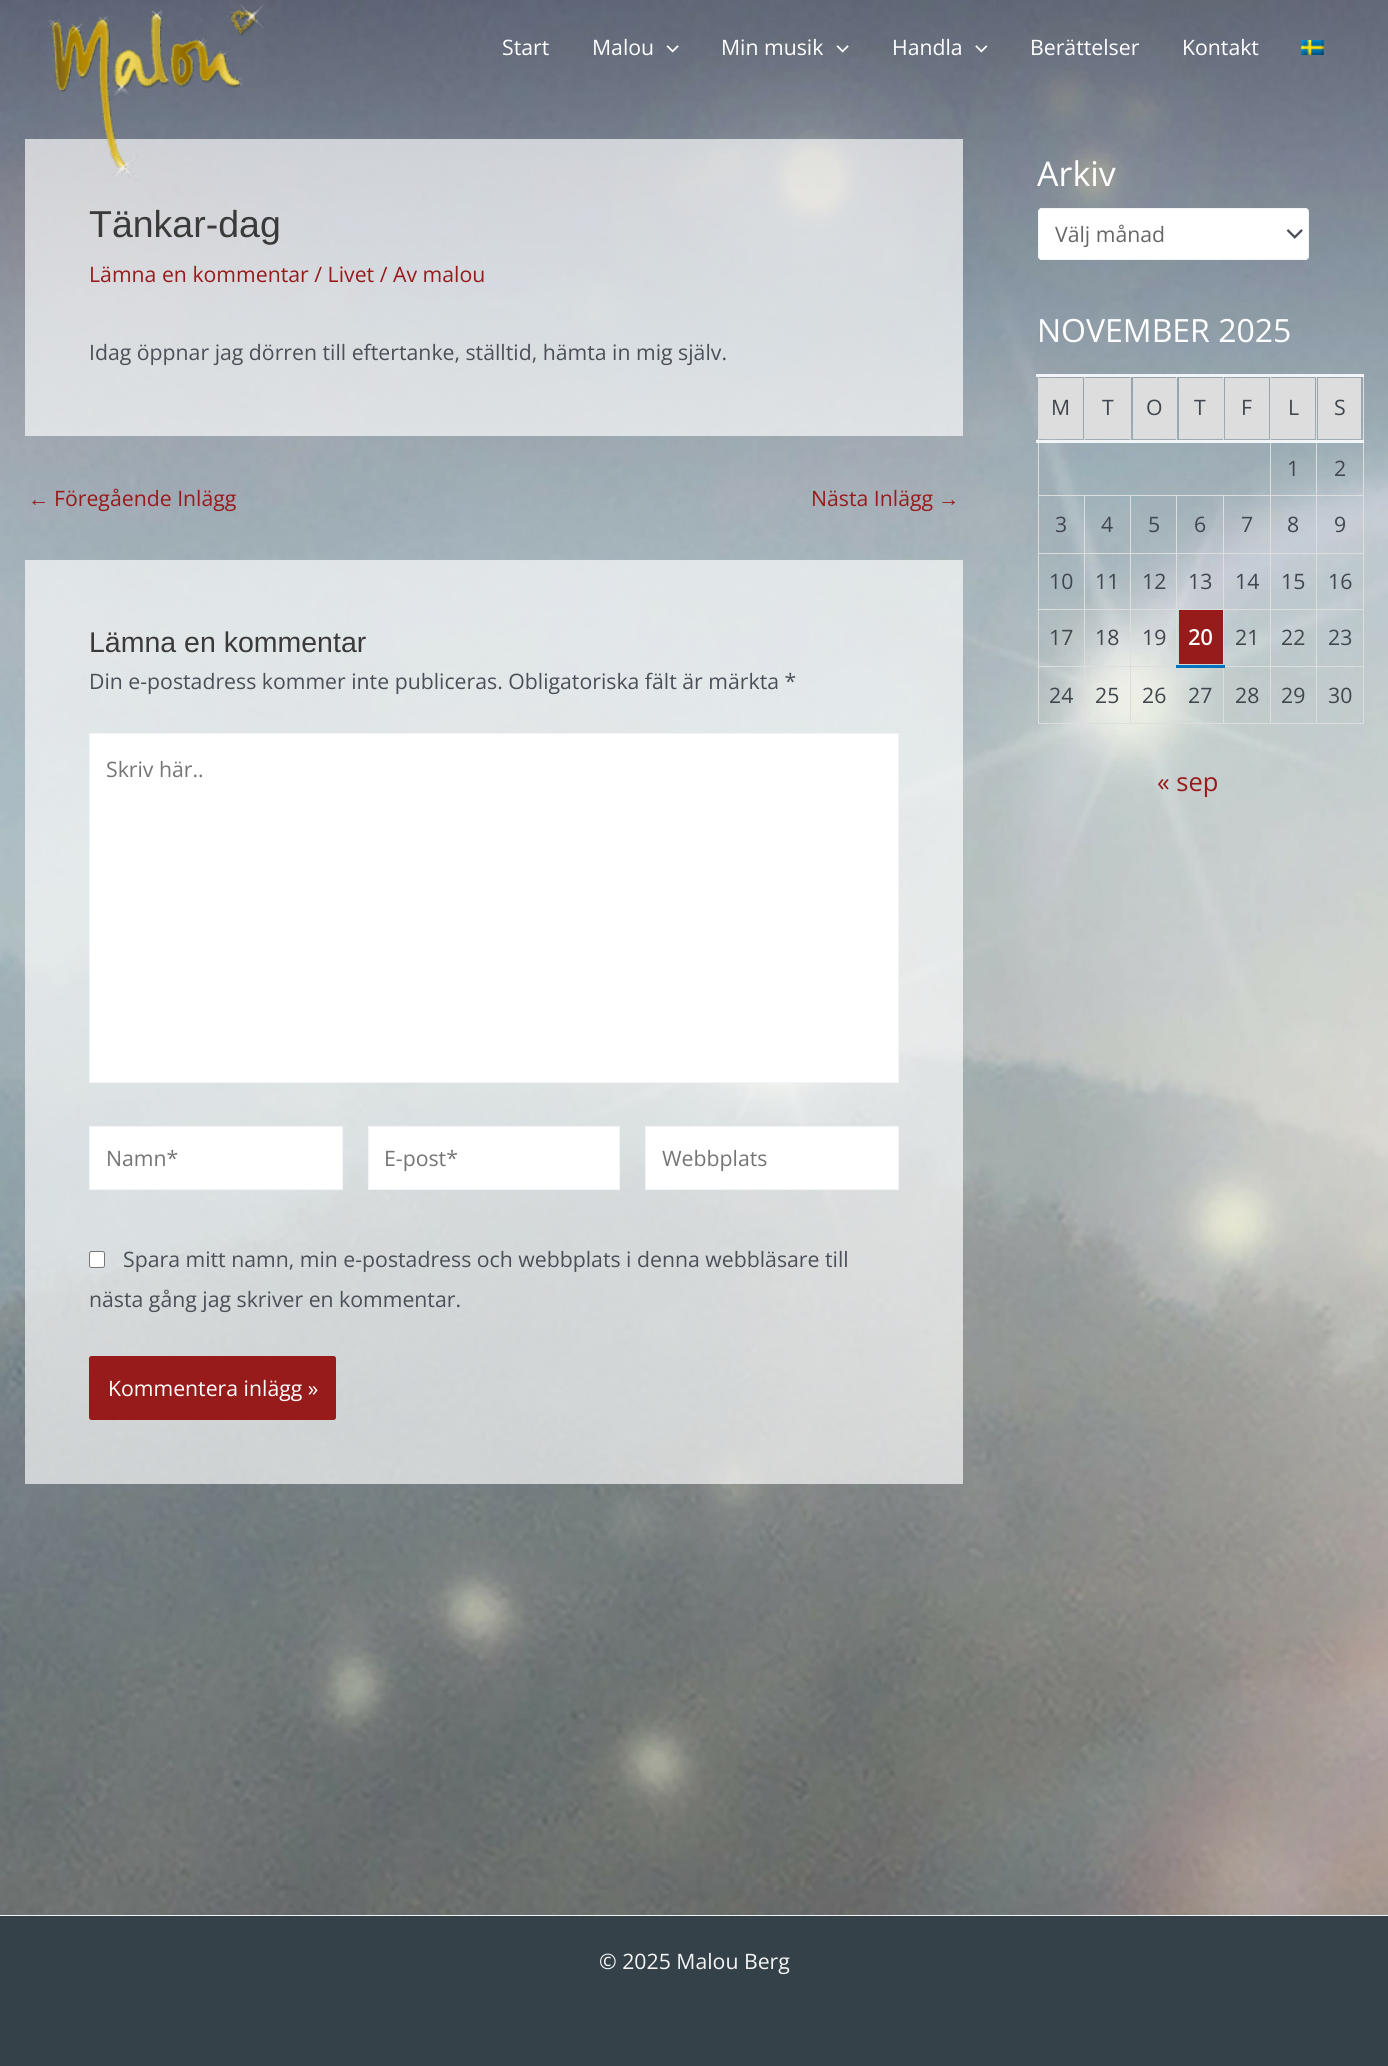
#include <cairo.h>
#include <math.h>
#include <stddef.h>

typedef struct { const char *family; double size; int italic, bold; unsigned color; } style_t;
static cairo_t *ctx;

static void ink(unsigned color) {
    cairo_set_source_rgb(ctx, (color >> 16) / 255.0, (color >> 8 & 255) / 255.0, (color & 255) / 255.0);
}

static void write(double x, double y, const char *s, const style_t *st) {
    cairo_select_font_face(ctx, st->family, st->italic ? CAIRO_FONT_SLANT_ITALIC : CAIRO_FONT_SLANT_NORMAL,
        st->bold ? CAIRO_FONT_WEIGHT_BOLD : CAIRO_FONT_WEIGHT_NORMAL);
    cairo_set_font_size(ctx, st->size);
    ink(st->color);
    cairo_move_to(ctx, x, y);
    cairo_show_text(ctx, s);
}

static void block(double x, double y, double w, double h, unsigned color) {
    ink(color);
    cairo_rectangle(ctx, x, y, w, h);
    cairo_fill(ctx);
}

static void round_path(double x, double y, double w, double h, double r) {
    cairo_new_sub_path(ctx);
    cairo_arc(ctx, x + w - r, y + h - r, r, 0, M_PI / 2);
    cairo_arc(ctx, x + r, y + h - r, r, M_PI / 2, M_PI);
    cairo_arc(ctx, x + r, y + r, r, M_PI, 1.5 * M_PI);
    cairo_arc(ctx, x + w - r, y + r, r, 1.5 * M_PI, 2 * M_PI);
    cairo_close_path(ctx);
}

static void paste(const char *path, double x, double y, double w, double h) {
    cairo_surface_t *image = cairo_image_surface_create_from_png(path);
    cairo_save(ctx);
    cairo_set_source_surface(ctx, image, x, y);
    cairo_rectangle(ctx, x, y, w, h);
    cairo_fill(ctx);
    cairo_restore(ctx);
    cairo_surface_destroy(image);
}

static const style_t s1 = {"Open Sans", 21.25, 0, 0, 0xffffff};
static const style_t s2 = {"Liberation Sans", 37.5, 0, 0, 0x3a3a3a};
static const style_t s3 = {"Open Sans", 21.25, 0, 0, 0x981b1b};
static const style_t s4 = {"Open Sans", 21.25, 0, 0, 0x4b4f58};
static const style_t s5 = {"Liberation Sans", 21.25, 0, 0, 0x981b1b};
static const style_t s6 = {"Liberation Sans", 28.5, 0, 0, 0x3a3a3a};
static const style_t s7 = {"Open Sans", 21.25, 0, 0, 0x757575};
static const style_t s8 = {"Open Sans", 34, 0, 0, 0xffffff};
static const style_t s9 = {"Open Sans", 21.25, 0, 0, 0x666666};
static const style_t s10 = {"Open Sans", 32, 0, 0, 0xffffff};
static const style_t s11 = {"Open Sans", 21.25, 0, 0, 0x40464d};
static const style_t s12 = {"Open Sans", 21.25, 0, 1, 0xffffff};
static const style_t s13 = {"Open Sans", 25.5, 0, 0, 0x981b1b};
static const style_t s14 = {"Open Sans", 21.25, 0, 0, 0xf5f5f5};

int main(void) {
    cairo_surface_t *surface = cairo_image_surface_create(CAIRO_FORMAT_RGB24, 1388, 2066);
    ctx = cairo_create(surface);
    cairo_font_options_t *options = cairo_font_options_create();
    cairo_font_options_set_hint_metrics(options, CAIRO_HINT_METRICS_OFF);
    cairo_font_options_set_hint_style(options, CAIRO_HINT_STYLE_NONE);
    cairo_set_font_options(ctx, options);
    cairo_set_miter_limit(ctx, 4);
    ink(0xffffff);
    cairo_paint(ctx);
    paste("pic1.png", 0, 0, 1388, 1915);
    cairo_set_source_rgba(ctx, 1, 1, 1, 0.66);
    cairo_rectangle(ctx, 25, 139, 938, 297);
    cairo_fill(ctx);
    paste("pic2.png", 47, 3, 219, 178);
    write(502, 55, "Start", &s1);
    write(592, 55, "Malou", &s1);
    paste("pic3.png", 666, 45, 13, 8);
    write(721, 55, "Min musik", &s1);
    paste("pic4.png", 836, 45, 13, 8);
    write(892, 55, "Handla", &s1);
    paste("pic5.png", 975, 45, 13, 8);
    write(1030, 55, "Berättelser", &s1);
    write(1182, 55, "Kontakt", &s1);
    paste("pic6.png", 1301, 40, 23, 15);
    write(89, 237, "Tänkar-dag", &s2);
    write(89, 282, "Lämna en kommentar / Livet / Av malou", &s3);
    write(89, 360, "Idag öppnar jag dörren till eftertanke, ställtid, hämta in mig själv.", &s4);
    write(28, 506, "←", &s5);
    write(54, 506, "Föregående Inlägg", &s3);
    write(811, 506, "Nästa Inlägg", &s3);
    write(938, 506, "→", &s5);
    cairo_set_source_rgba(ctx, 1, 1, 1, 0.66);
    cairo_rectangle(ctx, 25, 560, 938, 924);
    cairo_fill(ctx);
    write(89, 652, "Lämna en kommentar", &s6);
    write(89, 689, "Din e-postadress kommer inte publiceras. Obligatoriska fält är märkta *", &s4);
    ink(0xffffff);
    cairo_rectangle(ctx, 89.5, 733.5, 809, 349);
    cairo_fill_preserve(ctx);
    ink(0xf2f5f7);
    cairo_set_line_width(ctx, 1);
    cairo_stroke(ctx);
    write(106, 777, "Skriv här..", &s7);
    ink(0xffffff);
    cairo_rectangle(ctx, 89.5, 1126.5, 253, 63);
    cairo_fill_preserve(ctx);
    ink(0xf2f5f7);
    cairo_stroke(ctx);
    write(106, 1166, "Namn*", &s7);
    ink(0xffffff);
    cairo_rectangle(ctx, 368.5, 1126.5, 251, 63);
    cairo_fill_preserve(ctx);
    ink(0xf2f5f7);
    cairo_stroke(ctx);
    write(384, 1166, "E-post*", &s7);
    ink(0xffffff);
    cairo_rectangle(ctx, 645.5, 1126.5, 253, 63);
    cairo_fill_preserve(ctx);
    ink(0xf2f5f7);
    cairo_stroke(ctx);
    write(662, 1166, "Webbplats", &s7);
    ink(0xffffff);
    round_path(89.5, 1251.5, 15, 16, 2);
    cairo_fill_preserve(ctx);
    ink(0x767676);
    cairo_stroke(ctx);
    write(123, 1267, "Spara mitt namn, min e-postadress och webbplats i denna webbläsare till", &s4);
    write(89, 1307, "nästa gång jag skriver en kommentar.", &s4);
    ink(0x981b1b);
    round_path(89, 1356, 247, 64, 2.5);
    cairo_fill(ctx);
    write(108, 1396, "Kommentera inlägg »", &s1);
    write(1037, 186, "Arkiv", &s8);
    round_path(1038, 208, 271, 52, 4);
    cairo_fill(ctx);
    paste("pic7.png", 1286, 229, 17, 10);
    round_path(1038.5, 208.5, 270, 51, 3.5);
    ink(0xf2f5f7);
    cairo_stroke(ctx);
    write(1055, 242, "Välj månad", &s9);
    write(1037, 342, "NOVEMBER 2025", &s10);
    block(1039, 378, 44, 61, 0xdddddd);
    write(1051, 415, "M", &s11);
    block(1085, 378, 45, 61, 0xdddddd);
    block(1084, 374, 1, 67, 0xdddddd);
    write(1102, 415, "T", &s11);
    block(1133, 378, 43, 61, 0xdddddd);
    block(1130, 374, 1, 67, 0xdddddd);
    write(1146, 415, "O", &s11);
    block(1179, 378, 44, 61, 0xdddddd);
    block(1176, 374, 1, 67, 0xdddddd);
    write(1194, 415, "T", &s11);
    block(1225, 378, 44, 61, 0xdddddd);
    block(1223, 374, 1, 67, 0xdddddd);
    write(1241, 415, "F", &s11);
    block(1271, 378, 44, 61, 0xdddddd);
    write(1288, 415, "L", &s11);
    block(1318, 378, 43, 61, 0xdddddd);
    block(1316, 495, 48, 1, 0xdddddd);
    block(1316, 553, 48, 1, 0xdddddd);
    block(1316, 609, 48, 1, 0xdddddd);
    block(1316, 666, 48, 1, 0xdddddd);
    block(1363, 666, 1, 58, 0xdddddd);
    block(1316, 723, 48, 1, 0xdddddd);
    block(1316, 666, 1, 58, 0xdddddd);
    block(1270, 666, 48, 1, 0xdddddd);
    block(1316, 609, 1, 59, 0xdddddd);
    block(1270, 609, 48, 1, 0xdddddd);
    block(1316, 553, 1, 57, 0xdddddd);
    block(1270, 553, 48, 1, 0xdddddd);
    block(1316, 495, 1, 59, 0xdddddd);
    block(1270, 495, 48, 1, 0xdddddd);
    block(1270, 723, 48, 1, 0xdddddd);
    block(1270, 666, 1, 58, 0xdddddd);
    block(1223, 666, 48, 1, 0xdddddd);
    block(1270, 609, 1, 59, 0xdddddd);
    block(1223, 609, 48, 1, 0xdddddd);
    block(1270, 553, 1, 57, 0xdddddd);
    block(1223, 553, 48, 1, 0xdddddd);
    block(1270, 495, 1, 59, 0xdddddd);
    block(1223, 495, 48, 1, 0xdddddd);
    block(1270, 374, 1, 122, 0xdddddd);
    block(1316, 374, 1, 122, 0xdddddd);
    block(1223, 723, 48, 1, 0xdddddd);
    block(1223, 666, 1, 58, 0xdddddd);
    block(1223, 609, 1, 59, 0xdddddd);
    block(1176, 609, 48, 1, 0xdddddd);
    block(1223, 553, 1, 57, 0xdddddd);
    block(1176, 553, 48, 1, 0xdddddd);
    block(1223, 495, 1, 59, 0xdddddd);
    block(1176, 495, 48, 1, 0xdddddd);
    block(1176, 723, 48, 1, 0xdddddd);
    block(1176, 666, 1, 58, 0xdddddd);
    block(1130, 666, 48, 1, 0xdddddd);
    block(1176, 609, 1, 59, 0xdddddd);
    block(1130, 609, 48, 1, 0xdddddd);
    block(1176, 553, 1, 57, 0xdddddd);
    block(1130, 553, 48, 1, 0xdddddd);
    block(1176, 495, 1, 59, 0xdddddd);
    block(1130, 495, 48, 1, 0xdddddd);
    block(1130, 723, 48, 1, 0xdddddd);
    block(1130, 666, 1, 58, 0xdddddd);
    block(1084, 666, 47, 1, 0xdddddd);
    block(1130, 609, 1, 59, 0xdddddd);
    block(1084, 609, 47, 1, 0xdddddd);
    block(1130, 553, 1, 57, 0xdddddd);
    block(1084, 553, 47, 1, 0xdddddd);
    block(1130, 495, 1, 59, 0xdddddd);
    block(1084, 495, 47, 1, 0xdddddd);
    block(1084, 723, 47, 1, 0xdddddd);
    block(1084, 666, 1, 58, 0xdddddd);
    block(1038, 666, 47, 1, 0xdddddd);
    block(1084, 609, 1, 59, 0xdddddd);
    block(1038, 609, 47, 1, 0xdddddd);
    block(1084, 553, 1, 57, 0xdddddd);
    block(1038, 553, 47, 1, 0xdddddd);
    block(1084, 495, 1, 59, 0xdddddd);
    block(1038, 495, 47, 1, 0xdddddd);
    block(1038, 723, 47, 1, 0xdddddd);
    block(1038, 666, 1, 58, 0xdddddd);
    block(1038, 609, 1, 59, 0xdddddd);
    block(1038, 553, 1, 57, 0xdddddd);
    block(1038, 374, 1, 180, 0xdddddd);
    block(1363, 609, 1, 59, 0xdddddd);
    block(1363, 553, 1, 57, 0xdddddd);
    block(1363, 374, 1, 180, 0xdddddd);
    block(1036, 374, 328, 3, 0xf2f5f7);
    block(1036, 440, 328, 3, 0xf2f5f7);
    write(1334, 415, "S", &s11);
    write(1287, 476, "1", &s11);
    write(1334, 476, "2", &s11);
    write(1055, 532, "3", &s11);
    write(1101, 532, "4", &s11);
    write(1148, 532, "5", &s11);
    write(1194, 532, "6", &s11);
    write(1241, 532, "7", &s11);
    write(1287, 532, "8", &s11);
    write(1334, 532, "9", &s11);
    write(1049, 589, "10", &s11);
    write(1095, 589, "11", &s11);
    write(1142, 589, "12", &s11);
    write(1188, 589, "13", &s11);
    write(1235, 589, "14", &s11);
    write(1281, 589, "15", &s11);
    write(1328, 589, "16", &s11);
    write(1049, 645, "17", &s11);
    write(1095, 645, "18", &s11);
    write(1142, 645, "19", &s11);
    block(1179, 610, 44, 54, 0x981b1b);
    block(1176, 665, 49, 3, 0x0274be);
    write(1188, 645, "20", &s12);
    write(1235, 645, "21", &s11);
    write(1281, 645, "22", &s11);
    write(1328, 645, "23", &s11);
    write(1049, 703, "24", &s11);
    write(1095, 703, "25", &s11);
    write(1142, 703, "26", &s11);
    write(1188, 703, "27", &s11);
    write(1235, 703, "28", &s11);
    write(1281, 703, "29", &s11);
    write(1328, 703, "30", &s11);
    write(1157, 791, "« sep", &s13);
    block(0, 1916, 1388, 150, 0x344149);
    block(0, 1915, 1388, 1, 0xf2f5f7);
    write(599, 1969, "© 2025 Malou Berg", &s14);
    cairo_surface_write_to_png(surface, "screenshot.png");
    cairo_font_options_destroy(options);
    cairo_destroy(ctx);
    cairo_surface_destroy(surface);
    return 0;
}
